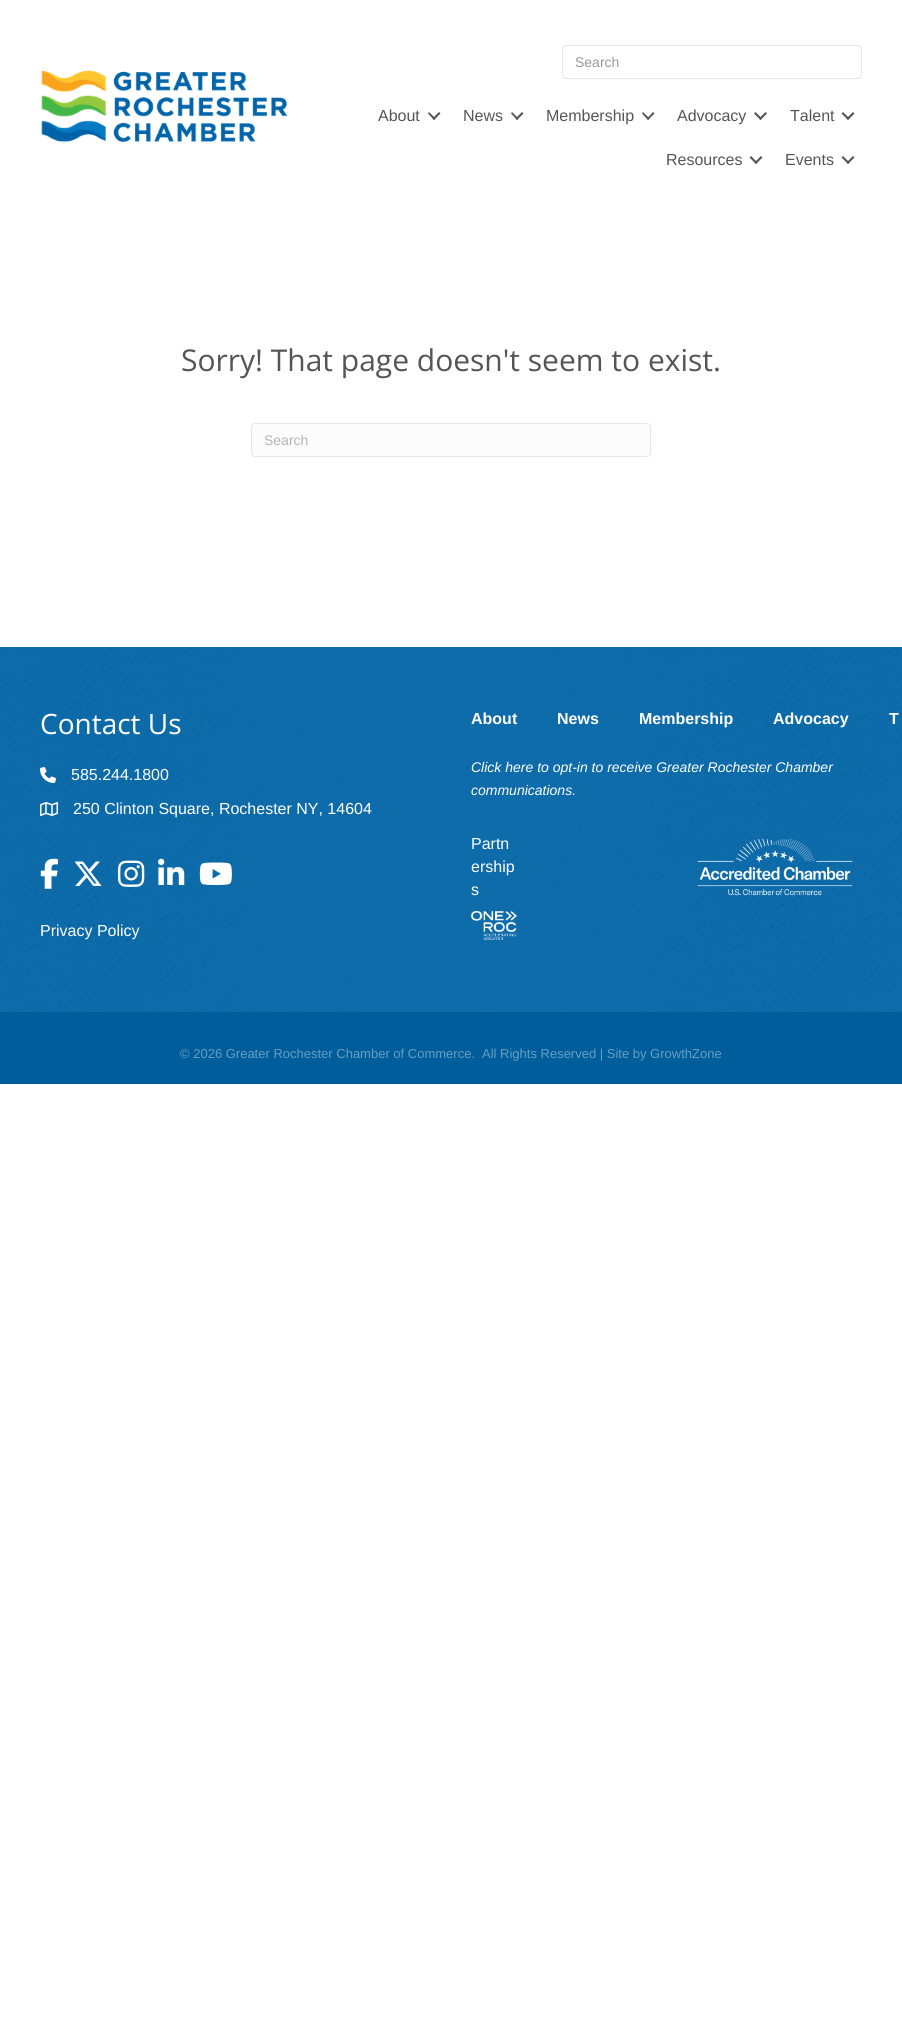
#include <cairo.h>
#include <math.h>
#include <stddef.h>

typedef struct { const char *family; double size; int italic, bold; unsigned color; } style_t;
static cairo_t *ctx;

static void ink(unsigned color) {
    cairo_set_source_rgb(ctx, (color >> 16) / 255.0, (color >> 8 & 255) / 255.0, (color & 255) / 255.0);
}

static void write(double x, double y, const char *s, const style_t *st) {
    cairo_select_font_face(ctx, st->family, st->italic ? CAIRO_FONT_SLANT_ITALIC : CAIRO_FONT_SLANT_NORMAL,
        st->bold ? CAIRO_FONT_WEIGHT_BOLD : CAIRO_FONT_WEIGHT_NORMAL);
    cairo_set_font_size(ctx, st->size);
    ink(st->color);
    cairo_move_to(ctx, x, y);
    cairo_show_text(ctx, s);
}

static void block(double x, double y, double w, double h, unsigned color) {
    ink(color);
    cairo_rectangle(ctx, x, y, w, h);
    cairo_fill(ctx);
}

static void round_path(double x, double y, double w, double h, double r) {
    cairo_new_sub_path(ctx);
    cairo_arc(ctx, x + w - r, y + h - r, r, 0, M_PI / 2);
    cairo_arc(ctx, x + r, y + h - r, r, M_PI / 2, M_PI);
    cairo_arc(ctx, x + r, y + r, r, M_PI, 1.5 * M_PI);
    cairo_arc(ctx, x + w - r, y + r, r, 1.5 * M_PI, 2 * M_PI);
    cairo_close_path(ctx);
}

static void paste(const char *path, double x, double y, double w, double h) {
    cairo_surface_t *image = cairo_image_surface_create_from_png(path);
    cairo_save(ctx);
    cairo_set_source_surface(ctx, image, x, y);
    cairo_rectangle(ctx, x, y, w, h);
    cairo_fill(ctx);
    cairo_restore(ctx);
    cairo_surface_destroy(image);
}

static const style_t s1 = {"Liberation Sans", 14, 0, 0, 0x999999};
static const style_t s2 = {"Liberation Sans", 16, 0, 0, 0x555555};
static const style_t s3 = {"Open Sans", 30, 0, 0, 0x555555};
static const style_t s4 = {"Liberation Sans", 14, 0, 0, 0xb4b4b4};
static const style_t s5 = {"Open Sans", 28, 0, 0, 0xffffff};
static const style_t s6 = {"Liberation Sans", 16, 0, 0, 0xffffff};
static const style_t s7 = {"Liberation Sans", 16, 0, 1, 0xffffff};
static const style_t s8 = {"Liberation Sans", 14, 1, 0, 0xffffff};
static const style_t s9 = {"Liberation Sans", 13, 0, 0, 0x669ec3};

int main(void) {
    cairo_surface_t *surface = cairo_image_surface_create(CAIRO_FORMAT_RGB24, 902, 2038);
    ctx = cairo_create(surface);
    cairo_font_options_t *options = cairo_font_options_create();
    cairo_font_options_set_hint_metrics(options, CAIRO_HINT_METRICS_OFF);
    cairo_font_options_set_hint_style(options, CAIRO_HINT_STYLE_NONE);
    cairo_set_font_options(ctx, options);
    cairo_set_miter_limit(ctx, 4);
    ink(0xffffff);
    cairo_paint(ctx);
    paste("pic1.png", 41, 70, 247, 73);
    round_path(562.5, 45.5, 299, 33, 3.5);
    ink(0xe6e6e6);
    cairo_set_line_width(ctx, 1);
    cairo_stroke(ctx);
    write(575, 67, "Search", &s1);
    write(378, 121, "About", &s2);
    cairo_new_path(ctx);
    cairo_move_to(ctx, 439, 112);
    cairo_line_to(ctx, 440.5, 113.5);
    cairo_line_to(ctx, 434, 120);
    cairo_line_to(ctx, 432.5, 118.5);
    cairo_close_path(ctx);
    cairo_fill(ctx);
    cairo_new_path(ctx);
    cairo_move_to(ctx, 429, 112);
    cairo_line_to(ctx, 435.5, 118.5);
    cairo_line_to(ctx, 434, 120);
    cairo_line_to(ctx, 428, 113.5);
    cairo_close_path(ctx);
    cairo_fill(ctx);
    write(463, 121, "News", &s2);
    cairo_new_path(ctx);
    cairo_move_to(ctx, 522, 112);
    cairo_line_to(ctx, 523.5, 113.5);
    cairo_line_to(ctx, 517, 120);
    cairo_line_to(ctx, 515.5, 118.5);
    cairo_close_path(ctx);
    cairo_fill(ctx);
    cairo_new_path(ctx);
    cairo_move_to(ctx, 512, 112);
    cairo_line_to(ctx, 518.5, 118.5);
    cairo_line_to(ctx, 517, 120);
    cairo_line_to(ctx, 511, 113.5);
    cairo_close_path(ctx);
    cairo_fill(ctx);
    write(546, 121, "Membership", &s2);
    cairo_new_path(ctx);
    cairo_move_to(ctx, 653, 112);
    cairo_line_to(ctx, 654.5, 113.5);
    cairo_line_to(ctx, 648, 120);
    cairo_line_to(ctx, 647, 118.5);
    cairo_close_path(ctx);
    cairo_fill(ctx);
    cairo_new_path(ctx);
    cairo_move_to(ctx, 643, 112);
    cairo_line_to(ctx, 649.5, 118.5);
    cairo_line_to(ctx, 648, 120);
    cairo_line_to(ctx, 642, 113.5);
    cairo_close_path(ctx);
    cairo_fill(ctx);
    write(677, 121, "Advocacy", &s2);
    cairo_new_path(ctx);
    cairo_move_to(ctx, 765.5, 112);
    cairo_line_to(ctx, 767, 113.5);
    cairo_line_to(ctx, 760.5, 120);
    cairo_line_to(ctx, 759, 118.5);
    cairo_close_path(ctx);
    cairo_fill(ctx);
    cairo_new_path(ctx);
    cairo_move_to(ctx, 755.5, 112);
    cairo_line_to(ctx, 762, 118.5);
    cairo_line_to(ctx, 760.5, 120);
    cairo_line_to(ctx, 754, 113.5);
    cairo_close_path(ctx);
    cairo_fill(ctx);
    write(790, 121, "Talent", &s2);
    cairo_new_path(ctx);
    cairo_move_to(ctx, 853, 112);
    cairo_line_to(ctx, 854.5, 113.5);
    cairo_line_to(ctx, 848, 120);
    cairo_line_to(ctx, 846.5, 118.5);
    cairo_close_path(ctx);
    cairo_fill(ctx);
    cairo_new_path(ctx);
    cairo_move_to(ctx, 843, 112);
    cairo_line_to(ctx, 849.5, 118.5);
    cairo_line_to(ctx, 848, 120);
    cairo_line_to(ctx, 841.5, 113.5);
    cairo_close_path(ctx);
    cairo_fill(ctx);
    write(666, 165, "Resources", &s2);
    cairo_new_path(ctx);
    cairo_move_to(ctx, 761, 156);
    cairo_line_to(ctx, 762.5, 157.5);
    cairo_line_to(ctx, 756, 164);
    cairo_line_to(ctx, 754.5, 162.5);
    cairo_close_path(ctx);
    cairo_fill(ctx);
    cairo_new_path(ctx);
    cairo_move_to(ctx, 751, 156);
    cairo_line_to(ctx, 757.5, 162.5);
    cairo_line_to(ctx, 756, 164);
    cairo_line_to(ctx, 749.5, 157.5);
    cairo_close_path(ctx);
    cairo_fill(ctx);
    write(785, 165, "Events", &s2);
    cairo_new_path(ctx);
    cairo_move_to(ctx, 853, 156);
    cairo_line_to(ctx, 854.5, 157.5);
    cairo_line_to(ctx, 848, 164);
    cairo_line_to(ctx, 846.5, 162.5);
    cairo_close_path(ctx);
    cairo_fill(ctx);
    cairo_new_path(ctx);
    cairo_move_to(ctx, 843, 156);
    cairo_line_to(ctx, 849.5, 162.5);
    cairo_line_to(ctx, 848, 164);
    cairo_line_to(ctx, 841.5, 157.5);
    cairo_close_path(ctx);
    cairo_fill(ctx);
    write(181, 371, "Sorry! That page doesn't seem to exist.", &s3);
    ink(0xfcfcfc);
    round_path(251.5, 423.5, 399, 33, 3.5);
    cairo_fill_preserve(ctx);
    ink(0xe6e6e6);
    cairo_stroke(ctx);
    write(264, 445, "Search", &s4);
    paste("pic2.png", 0, 647, 902, 365);
    write(40, 734, "Contact Us", &s5);
    paste("pic3.png", 40, 767, 16, 16);
    write(71, 780, "585.244.1800", &s6);
    paste("pic4.png", 40, 802, 18, 14);
    write(73, 814, "250 Clinton Square, Rochester NY, 14604", &s6);
    paste("pic5.png", 40, 858, 18, 31);
    paste("pic6.png", 74, 861, 28, 25);
    paste("pic7.png", 118, 860, 27, 27);
    paste("pic8.png", 158, 858, 27, 27);
    paste("pic9.png", 199, 862, 33, 23);
    write(40, 936, "Privacy Policy", &s6);
    write(471, 724, "About", &s7);
    write(557, 724, "News", &s7);
    write(639, 724, "Membership", &s7);
    write(773, 724, "Advocacy", &s7);
    write(889, 724, "T", &s7);
    write(471, 772, "Click here to opt-in to receive Greater Rochester Chamber", &s8);
    write(471, 795, "communications.", &s8);
    write(471, 849, "Partn", &s6);
    write(471, 872, "ership", &s6);
    write(471, 895, "s", &s6);
    paste("pic10.png", 471, 911, 46, 29);
    paste("pic11.png", 697, 838, 156, 58);
    block(0, 1012, 902, 72, 0x005d9b);
    write(180, 1058, "© 2026 Greater Rochester Chamber of Commerce.", &s9);
    write(482, 1058, "All Rights Reserved | Site by GrowthZone", &s9);
    cairo_surface_write_to_png(surface, "screenshot.png");
    cairo_font_options_destroy(options);
    cairo_destroy(ctx);
    cairo_surface_destroy(surface);
    return 0;
}
